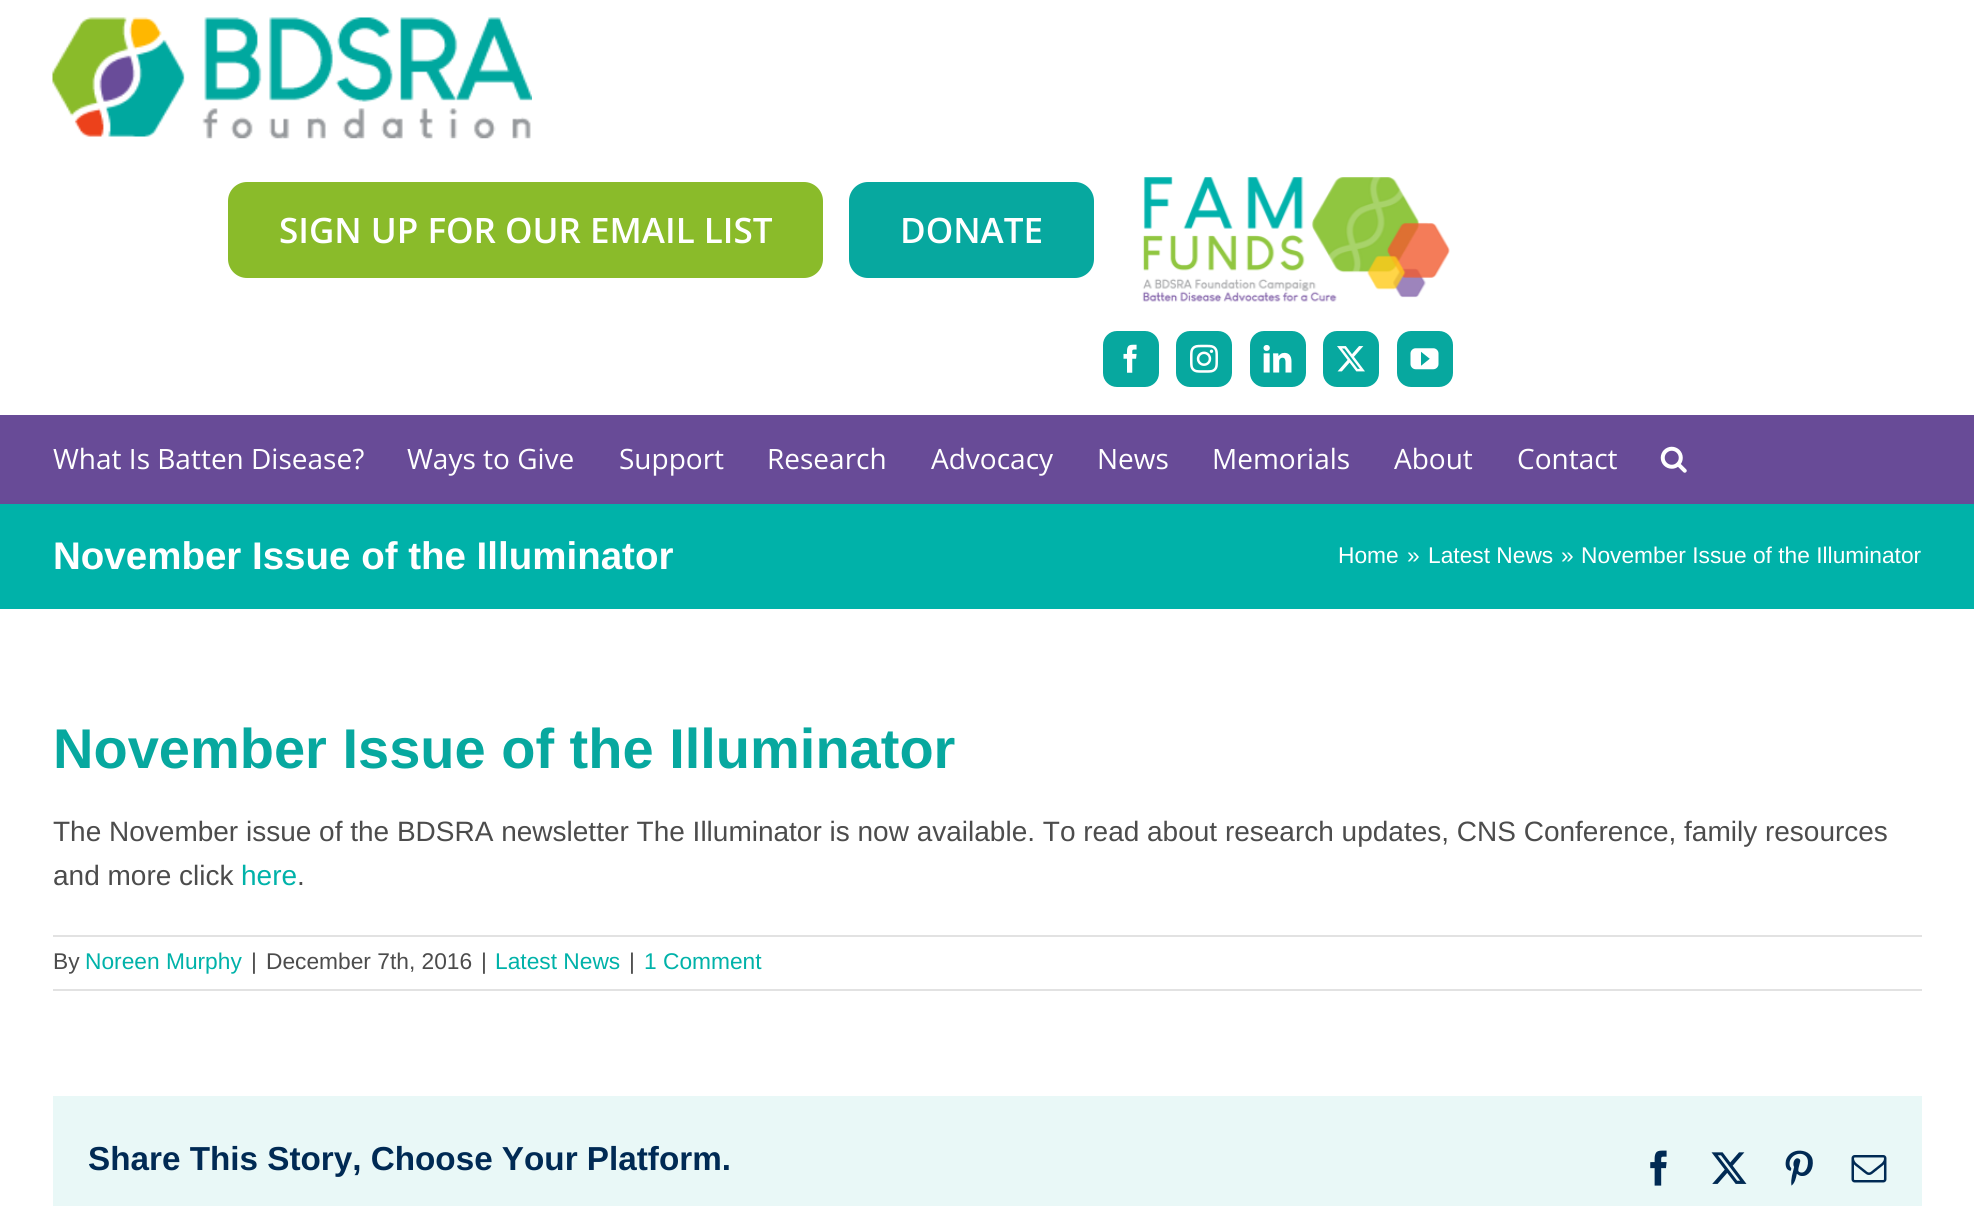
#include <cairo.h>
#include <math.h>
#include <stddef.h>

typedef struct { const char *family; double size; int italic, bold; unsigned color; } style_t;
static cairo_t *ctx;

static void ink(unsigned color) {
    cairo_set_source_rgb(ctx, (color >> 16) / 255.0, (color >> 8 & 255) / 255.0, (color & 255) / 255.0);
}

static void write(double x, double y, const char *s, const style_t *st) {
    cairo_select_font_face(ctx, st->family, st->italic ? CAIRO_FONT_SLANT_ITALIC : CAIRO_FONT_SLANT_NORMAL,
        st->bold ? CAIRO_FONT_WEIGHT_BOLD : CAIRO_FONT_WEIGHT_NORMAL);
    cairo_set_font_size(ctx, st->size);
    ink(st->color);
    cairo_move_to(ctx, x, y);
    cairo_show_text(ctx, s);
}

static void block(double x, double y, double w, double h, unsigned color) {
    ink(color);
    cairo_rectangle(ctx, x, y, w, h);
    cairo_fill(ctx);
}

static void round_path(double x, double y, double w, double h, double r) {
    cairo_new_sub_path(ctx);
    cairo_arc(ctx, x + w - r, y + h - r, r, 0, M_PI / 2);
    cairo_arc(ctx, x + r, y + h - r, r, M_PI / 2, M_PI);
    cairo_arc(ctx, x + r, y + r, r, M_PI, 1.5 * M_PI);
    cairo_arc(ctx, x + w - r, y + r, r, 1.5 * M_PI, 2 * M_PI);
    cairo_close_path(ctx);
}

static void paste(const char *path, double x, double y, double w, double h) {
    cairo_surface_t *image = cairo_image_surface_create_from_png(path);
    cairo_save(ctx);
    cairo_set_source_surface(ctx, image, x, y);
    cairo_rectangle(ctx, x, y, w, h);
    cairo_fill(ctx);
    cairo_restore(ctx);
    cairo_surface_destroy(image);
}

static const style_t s1 = {"Open Sans SemiBold", 35, 0, 0, 0xffffff};
static const style_t s2 = {"Open Sans", 28, 0, 0, 0xffffff};
static const style_t s3 = {"Liberation Sans", 38.5, 0, 1, 0xffffff};
static const style_t s4 = {"Liberation Sans", 22.75, 0, 0, 0xffffff};
static const style_t s5 = {"Liberation Sans", 56, 0, 1, 0x07a89f};
static const style_t s6 = {"Liberation Sans", 28, 0, 0, 0x4c4c4c};
static const style_t s7 = {"Liberation Sans", 28, 0, 0, 0x00b2a9};
static const style_t s8 = {"Liberation Sans", 22.75, 0, 0, 0x4c4c4c};
static const style_t s9 = {"Liberation Sans", 22.75, 0, 0, 0x00b2a9};
static const style_t s10 = {"Liberation Sans", 33.25, 0, 1, 0x002a54};

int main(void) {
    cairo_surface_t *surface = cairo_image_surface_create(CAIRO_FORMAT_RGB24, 1974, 1206);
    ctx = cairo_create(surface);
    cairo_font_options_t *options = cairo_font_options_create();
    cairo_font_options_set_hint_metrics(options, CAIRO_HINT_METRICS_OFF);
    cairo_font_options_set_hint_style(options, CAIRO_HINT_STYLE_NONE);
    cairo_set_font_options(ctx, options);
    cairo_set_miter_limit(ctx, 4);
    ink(0xffffff);
    cairo_paint(ctx);
    paste("pic1.png", 52, 17, 480, 122);
    ink(0x8abb2a);
    round_path(228, 182, 595, 96, 19);
    cairo_fill(ctx);
    write(279, 243, "SIGN UP FOR OUR EMAIL LIST", &s1);
    ink(0x07a89f);
    round_path(849, 182, 245, 96, 19);
    cairo_fill(ctx);
    write(900, 243, "DONATE", &s1);
    paste("pic2.png", 1142, 177, 308, 125);
    ink(0x07a89f);
    round_path(1103, 331, 56, 56, 14);
    cairo_fill(ctx);
    paste("pic3.png", 1123, 344, 14, 29);
    round_path(1176, 331, 56, 56, 14);
    cairo_fill(ctx);
    paste("pic4.png", 1190, 344, 28, 29);
    round_path(1250, 331, 56, 56, 14);
    cairo_fill(ctx);
    paste("pic5.png", 1263, 345, 29, 28);
    round_path(1323, 331, 56, 56, 14);
    cairo_fill(ctx);
    paste("pic6.png", 1337, 346, 28, 26);
    round_path(1397, 331, 56, 56, 14);
    cairo_fill(ctx);
    paste("pic7.png", 1410, 348, 29, 22);
    block(0, 415, 1974, 89, 0x684b97);
    write(53, 469, "What Is Batten Disease?", &s2);
    write(407, 469, "Ways to Give", &s2);
    write(619, 469, "Support", &s2);
    write(767, 469, "Research", &s2);
    write(931, 469, "Advocacy", &s2);
    write(1097, 469, "News", &s2);
    write(1212, 469, "Memorials", &s2);
    write(1394, 469, "About", &s2);
    write(1517, 469, "Contact", &s2);
    paste("pic8.png", 1660, 446, 27, 27);
    block(0, 504, 1974, 105, 0x00b2a9);
    write(53, 569, "November Issue of the Illuminator", &s3);
    write(1338, 563, "Home", &s4);
    write(1407, 563, "»", &s4);
    write(1428, 563, "Latest News", &s4);
    write(1561, 563, "»", &s4);
    write(1581, 563, "November Issue of the Illuminator", &s4);
    write(53, 768, "November Issue of the Illuminator", &s5);
    write(53, 841, "The November issue of the BDSRA newsletter The Illuminator is now available. To read about research updates, CNS Conference, family resources", &s6);
    write(53, 885, "and more click", &s6);
    write(241, 885, "here", &s7);
    write(297, 885, ".", &s6);
    block(53, 935, 1869, 2, 0xe2e2e2);
    block(53, 989, 1869, 2, 0xe2e2e2);
    write(53, 969, "By", &s8);
    write(85, 969, "Noreen Murphy", &s9);
    write(251, 969, "|", &s8);
    write(266, 969, "December 7th, 2016", &s8);
    write(481, 969, "|", &s8);
    write(495, 969, "Latest News", &s9);
    write(629, 969, "|", &s8);
    write(644, 969, "1 Comment", &s9);
    block(53, 1096, 1869, 110, 0xe9f8f7);
    write(88, 1170, "Share This Story, Choose Your Platform.", &s10);
    paste("pic9.png", 1650, 1150, 17, 36);
    paste("pic10.png", 1711, 1152, 36, 32);
    paste("pic11.png", 1785, 1150, 28, 36);
    paste("pic12.png", 1851, 1155, 36, 28);
    cairo_surface_write_to_png(surface, "screenshot.png");
    cairo_font_options_destroy(options);
    cairo_destroy(ctx);
    cairo_surface_destroy(surface);
    return 0;
}
